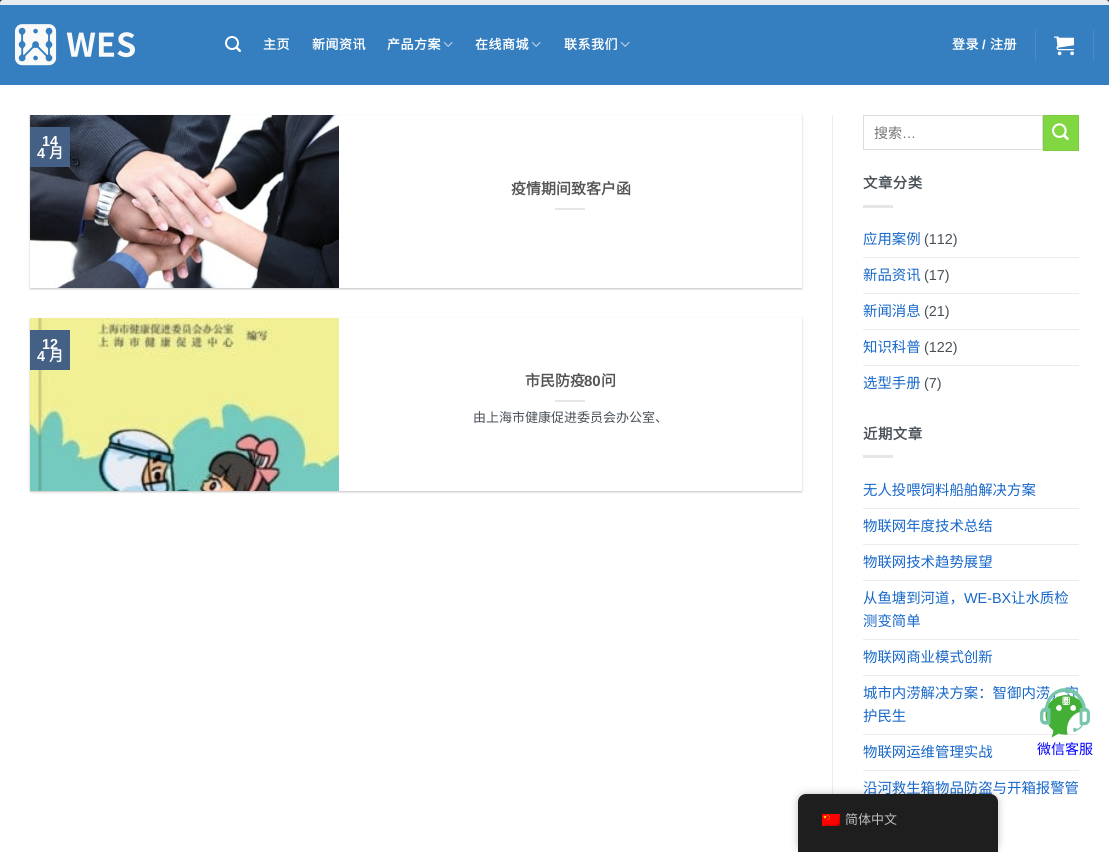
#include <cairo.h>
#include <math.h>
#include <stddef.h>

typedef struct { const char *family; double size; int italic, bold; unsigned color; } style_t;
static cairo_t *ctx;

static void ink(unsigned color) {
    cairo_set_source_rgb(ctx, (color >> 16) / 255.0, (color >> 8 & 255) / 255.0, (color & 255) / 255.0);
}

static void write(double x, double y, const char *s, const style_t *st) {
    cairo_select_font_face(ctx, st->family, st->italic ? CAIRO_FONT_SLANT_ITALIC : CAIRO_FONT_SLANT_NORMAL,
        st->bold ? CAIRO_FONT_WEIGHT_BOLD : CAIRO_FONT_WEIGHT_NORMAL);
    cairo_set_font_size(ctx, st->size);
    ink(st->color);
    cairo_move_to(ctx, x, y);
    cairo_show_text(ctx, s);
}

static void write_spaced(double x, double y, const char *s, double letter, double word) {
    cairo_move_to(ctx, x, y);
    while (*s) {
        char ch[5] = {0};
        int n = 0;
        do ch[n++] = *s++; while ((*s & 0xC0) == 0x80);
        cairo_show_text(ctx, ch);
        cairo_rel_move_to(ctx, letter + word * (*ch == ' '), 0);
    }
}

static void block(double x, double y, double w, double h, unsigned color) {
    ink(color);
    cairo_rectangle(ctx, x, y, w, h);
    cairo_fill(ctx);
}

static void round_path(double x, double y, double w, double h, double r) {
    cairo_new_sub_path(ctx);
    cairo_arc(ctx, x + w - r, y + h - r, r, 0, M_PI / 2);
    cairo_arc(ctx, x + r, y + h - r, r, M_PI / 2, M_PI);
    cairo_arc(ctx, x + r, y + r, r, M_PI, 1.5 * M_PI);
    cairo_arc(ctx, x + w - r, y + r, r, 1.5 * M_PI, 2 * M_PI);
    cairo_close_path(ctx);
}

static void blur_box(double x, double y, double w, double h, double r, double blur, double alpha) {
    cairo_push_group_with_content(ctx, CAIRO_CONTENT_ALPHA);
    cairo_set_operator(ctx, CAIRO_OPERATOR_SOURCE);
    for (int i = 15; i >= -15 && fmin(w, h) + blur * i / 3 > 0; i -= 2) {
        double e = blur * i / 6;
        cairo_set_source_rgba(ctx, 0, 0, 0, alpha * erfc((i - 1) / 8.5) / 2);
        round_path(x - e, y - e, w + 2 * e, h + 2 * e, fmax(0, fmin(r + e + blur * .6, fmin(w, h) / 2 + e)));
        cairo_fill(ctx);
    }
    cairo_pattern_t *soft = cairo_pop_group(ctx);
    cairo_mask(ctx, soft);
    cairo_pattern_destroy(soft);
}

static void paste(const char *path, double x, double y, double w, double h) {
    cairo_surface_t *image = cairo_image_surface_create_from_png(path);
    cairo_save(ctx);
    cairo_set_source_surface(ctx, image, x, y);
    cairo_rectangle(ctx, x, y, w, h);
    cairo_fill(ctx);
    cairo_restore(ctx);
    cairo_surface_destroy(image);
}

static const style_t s1 = {"Liberation Sans", 14.4, 0, 1, 0xffffff};
static const style_t s2 = {"Noto Sans CJK SC", 14.4, 0, 1, 0xffffff};
static const style_t s3 = {"Noto Sans CJK SC", 15, 0, 1, 0x555555};
static const style_t s4 = {"Liberation Sans", 15, 0, 1, 0x555555};
static const style_t s5 = {"Noto Sans CJK SC", 13, 0, 0, 0x495057};
static const style_t s6 = {"Noto Sans CJK SC", 14, 0, 0, 0x757575};
static const style_t s7 = {"Liberation Sans", 14, 0, 0, 0x757575};
static const style_t s8 = {"Noto Sans CJK SC", 14.4, 0, 0, 0x1667c9};
static const style_t s9 = {"Liberation Sans", 14.4, 0, 0, 0x495057};
static const style_t s10 = {"Liberation Sans", 14.4, 0, 0, 0x1667c9};
static const style_t s11 = {"Noto Sans CJK SC", 14, 0, 0, 0x0000ff};
static const style_t s12 = {"Noto Sans CJK SC", 13, 0, 0, 0xbdbdbd};

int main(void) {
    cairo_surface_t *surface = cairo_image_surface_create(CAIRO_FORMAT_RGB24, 1109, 852);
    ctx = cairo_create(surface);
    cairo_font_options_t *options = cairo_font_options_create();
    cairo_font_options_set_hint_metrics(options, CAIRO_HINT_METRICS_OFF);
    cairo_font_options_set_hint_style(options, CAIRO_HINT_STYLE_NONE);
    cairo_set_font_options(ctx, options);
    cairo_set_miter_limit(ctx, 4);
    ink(0x303039);
    cairo_paint(ctx);
    ink(0xe9ecef);
    round_path(0, 0, 1109, 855, 3);
    cairo_fill(ctx);
    block(0, 85, 1109, 767, 0xffffff);
    block(0, 5, 1109, 80, 0x357ebf);
    paste("pic1.png", 15, 24, 120, 42);
    paste("pic2.png", 225, 36, 16, 16);
    cairo_select_font_face(ctx, "Noto Sans CJK SC", CAIRO_FONT_SLANT_NORMAL, CAIRO_FONT_WEIGHT_BOLD);
    cairo_set_font_size(ctx, 13);
    ink(0xffffff);
    write_spaced(263, 49, "主页", 0.5, 0);
    write_spaced(312, 49, "新闻资讯", 0.5, 0);
    write_spaced(387, 49, "产品方案", 0.5, 0);
    paste("pic3.png", 443, 41, 10, 6);
    write_spaced(475, 49, "在线商城", 0.5, 0);
    paste("pic3.png", 531, 41, 10, 6);
    write_spaced(564, 49, "联系我们", 0.5, 0);
    paste("pic3.png", 620, 41, 10, 6);
    write_spaced(952, 49, "登录", 0.5, 0);
    cairo_select_font_face(ctx, "Liberation Sans", CAIRO_FONT_SLANT_NORMAL, CAIRO_FONT_WEIGHT_BOLD);
    write_spaced(982, 49, "/", 0.5, 0);
    cairo_select_font_face(ctx, "Noto Sans CJK SC", CAIRO_FONT_SLANT_NORMAL, CAIRO_FONT_WEIGHT_BOLD);
    write_spaced(990, 49, "注册", 0.5, 0);
    block(1035, 30, 1, 30, 0x498bc5);
    paste("pic4.png", 1054, 36, 20, 20);
    block(1093, 30, 1, 30, 0x498bc5);
    cairo_save(ctx);
    cairo_set_fill_rule(ctx, CAIRO_FILL_RULE_EVEN_ODD);
    cairo_new_path(ctx);
    cairo_move_to(ctx, 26, 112);
    cairo_line_to(ctx, 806, 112);
    cairo_line_to(ctx, 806, 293);
    cairo_line_to(ctx, 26, 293);
    cairo_close_path(ctx);
    cairo_move_to(ctx, 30, 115);
    cairo_line_to(ctx, 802, 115);
    cairo_line_to(ctx, 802, 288);
    cairo_line_to(ctx, 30, 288);
    cairo_close_path(ctx);
    cairo_clip(ctx);
    ink(0x000000);
    blur_box(30, 116, 772, 173, 0, 1, 0.24);
    cairo_restore(ctx);
    paste("pic5.png", 30, 115, 309, 173);
    block(30, 127, 40, 40, 0x446084);
    write(42, 146, "14", &s1);
    write(37, 158, "4", &s1);
    write(49, 158, "月", &s2);
    write(511, 194, "疫情期间致客户函", &s3);
    block(555, 208, 30, 2, 0xe6e6e6);
    cairo_save(ctx);
    cairo_set_fill_rule(ctx, CAIRO_FILL_RULE_EVEN_ODD);
    cairo_new_path(ctx);
    cairo_move_to(ctx, 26, 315);
    cairo_line_to(ctx, 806, 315);
    cairo_line_to(ctx, 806, 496);
    cairo_line_to(ctx, 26, 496);
    cairo_close_path(ctx);
    cairo_move_to(ctx, 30, 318);
    cairo_line_to(ctx, 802, 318);
    cairo_line_to(ctx, 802, 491);
    cairo_line_to(ctx, 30, 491);
    cairo_close_path(ctx);
    cairo_clip(ctx);
    ink(0x000000);
    blur_box(30, 319, 772, 173, 0, 1, 0.24);
    cairo_restore(ctx);
    paste("pic6.png", 30, 318, 309, 173);
    block(30, 330, 40, 40, 0x446084);
    write(42, 349, "12", &s1);
    write(37, 361, "4", &s1);
    write(49, 361, "月", &s2);
    write(525, 386, "市民防疫", &s3);
    write(584, 386, "80", &s4);
    write(601, 386, "问", &s3);
    block(555, 400, 30, 2, 0xe6e6e6);
    write(473, 422, "由上海市健康促进委员会办公室、", &s5);
    block(832, 115, 1, 679, 0xececec);
    cairo_rectangle(ctx, 863.5, 115.5, 179, 34);
    ink(0xdddddd);
    cairo_set_line_width(ctx, 1);
    cairo_stroke(ctx);
    write(874, 138, "搜索", &s6);
    write(902, 138, "…", &s7);
    ink(0x81d742);
    cairo_rectangle(ctx, 1043.5, 115.5, 35, 35);
    cairo_fill_preserve(ctx);
    ink(0x7bcc3f);
    cairo_stroke(ctx);
    paste("pic7.png", 1052, 123, 17, 17);
    cairo_select_font_face(ctx, "Noto Sans CJK SC", CAIRO_FONT_SLANT_NORMAL, CAIRO_FONT_WEIGHT_BOLD);
    cairo_set_font_size(ctx, 14.4);
    ink(0x495057);
    write_spaced(863, 188, "文章分类", 0.5, 0);
    block(863, 205, 30, 3, 0xe6e6e6);
    write(863, 244, "应用案例", &s8);
    write(924, 244, "(112)", &s9);
    block(863, 257, 216, 1, 0xececec);
    write(863, 280, "新品资讯", &s8);
    write(924, 280, "(17)", &s9);
    block(863, 293, 216, 1, 0xececec);
    write(863, 316, "新闻消息", &s8);
    write(924, 316, "(21)", &s9);
    block(863, 329, 216, 1, 0xececec);
    write(863, 352, "知识科普", &s8);
    write(924, 352, "(122)", &s9);
    block(863, 365, 216, 1, 0xececec);
    write(863, 388, "选型手册", &s8);
    write(924, 388, "(7)", &s9);
    cairo_select_font_face(ctx, "Noto Sans CJK SC", CAIRO_FONT_SLANT_NORMAL, CAIRO_FONT_WEIGHT_BOLD);
    write_spaced(863, 439, "近期文章", 0.5, 0);
    block(863, 455, 30, 3, 0xe6e6e6);
    write(863, 495, "无人投喂饲料船舶解决方案", &s8);
    block(863, 508, 216, 1, 0xececec);
    write(863, 531, "物联网年度技术总结", &s8);
    block(863, 544, 216, 1, 0xececec);
    write(863, 567, "物联网技术趋势展望", &s8);
    block(863, 580, 216, 1, 0xececec);
    write(863, 603, "从鱼塘到河道，", &s8);
    write(964, 603, "WE-BX", &s10);
    write(1011, 603, "让水质检", &s8);
    write(863, 626, "测变简单", &s8);
    block(863, 639, 216, 1, 0xececec);
    write(863, 662, "物联网商业模式创新", &s8);
    block(863, 675, 216, 1, 0xececec);
    write(863, 698, "城市内涝解决方案：智御内涝，守", &s8);
    write(863, 721, "护民生", &s8);
    block(863, 734, 216, 1, 0xececec);
    write(863, 757, "物联网运维管理实战", &s8);
    block(863, 770, 216, 1, 0xececec);
    write(863, 793, "沿河救生箱物品防盗与开箱报警管", &s8);
    paste("pic8.png", 1040, 687, 50, 51);
    write(1037, 754, "微信客服", &s11);
    ink(0x000000);
    blur_box(798, 794, 200, 58, 8, 4, 0.25);
    ink(0x1e1e1e);
    cairo_new_path(ctx);
    cairo_move_to(ctx, 806, 794);
    cairo_line_to(ctx, 990, 794);
    cairo_curve_to(ctx, 994.5, 794, 998, 797.5, 998, 802);
    cairo_line_to(ctx, 998, 852);
    cairo_line_to(ctx, 798, 852);
    cairo_line_to(ctx, 798, 802);
    cairo_curve_to(ctx, 798, 797.5, 801.5, 794, 806, 794);
    cairo_close_path(ctx);
    cairo_fill(ctx);
    paste("pic9.png", 822, 814, 18, 12);
    write(845, 824, "简体中文", &s12);
    cairo_surface_write_to_png(surface, "screenshot.png");
    cairo_font_options_destroy(options);
    cairo_destroy(ctx);
    cairo_surface_destroy(surface);
    return 0;
}
